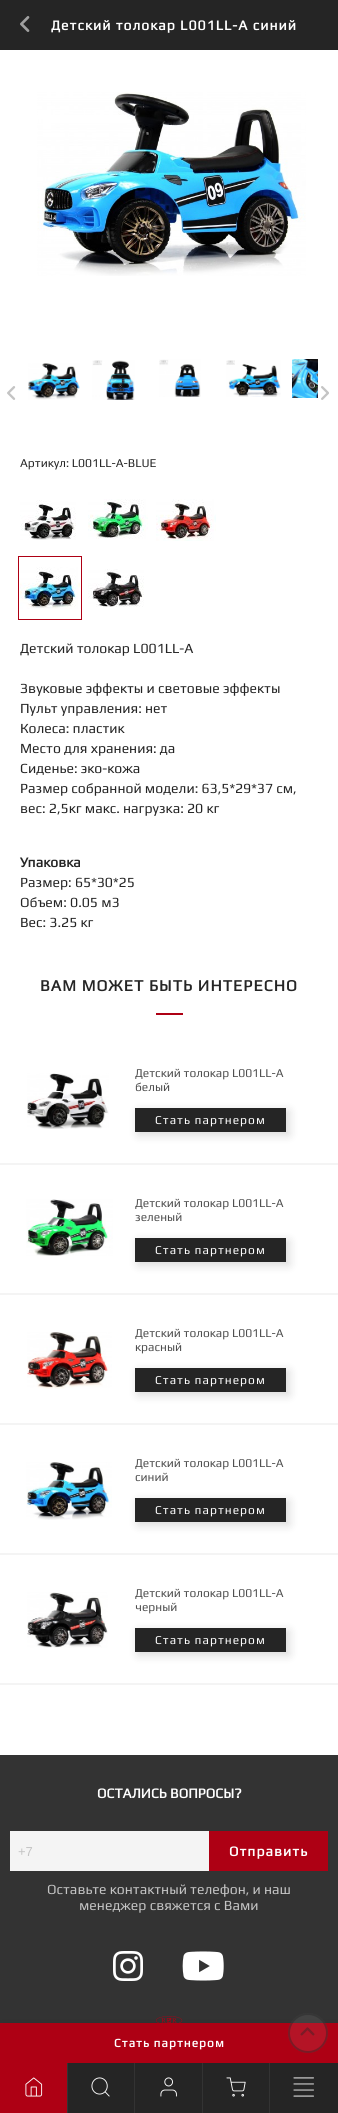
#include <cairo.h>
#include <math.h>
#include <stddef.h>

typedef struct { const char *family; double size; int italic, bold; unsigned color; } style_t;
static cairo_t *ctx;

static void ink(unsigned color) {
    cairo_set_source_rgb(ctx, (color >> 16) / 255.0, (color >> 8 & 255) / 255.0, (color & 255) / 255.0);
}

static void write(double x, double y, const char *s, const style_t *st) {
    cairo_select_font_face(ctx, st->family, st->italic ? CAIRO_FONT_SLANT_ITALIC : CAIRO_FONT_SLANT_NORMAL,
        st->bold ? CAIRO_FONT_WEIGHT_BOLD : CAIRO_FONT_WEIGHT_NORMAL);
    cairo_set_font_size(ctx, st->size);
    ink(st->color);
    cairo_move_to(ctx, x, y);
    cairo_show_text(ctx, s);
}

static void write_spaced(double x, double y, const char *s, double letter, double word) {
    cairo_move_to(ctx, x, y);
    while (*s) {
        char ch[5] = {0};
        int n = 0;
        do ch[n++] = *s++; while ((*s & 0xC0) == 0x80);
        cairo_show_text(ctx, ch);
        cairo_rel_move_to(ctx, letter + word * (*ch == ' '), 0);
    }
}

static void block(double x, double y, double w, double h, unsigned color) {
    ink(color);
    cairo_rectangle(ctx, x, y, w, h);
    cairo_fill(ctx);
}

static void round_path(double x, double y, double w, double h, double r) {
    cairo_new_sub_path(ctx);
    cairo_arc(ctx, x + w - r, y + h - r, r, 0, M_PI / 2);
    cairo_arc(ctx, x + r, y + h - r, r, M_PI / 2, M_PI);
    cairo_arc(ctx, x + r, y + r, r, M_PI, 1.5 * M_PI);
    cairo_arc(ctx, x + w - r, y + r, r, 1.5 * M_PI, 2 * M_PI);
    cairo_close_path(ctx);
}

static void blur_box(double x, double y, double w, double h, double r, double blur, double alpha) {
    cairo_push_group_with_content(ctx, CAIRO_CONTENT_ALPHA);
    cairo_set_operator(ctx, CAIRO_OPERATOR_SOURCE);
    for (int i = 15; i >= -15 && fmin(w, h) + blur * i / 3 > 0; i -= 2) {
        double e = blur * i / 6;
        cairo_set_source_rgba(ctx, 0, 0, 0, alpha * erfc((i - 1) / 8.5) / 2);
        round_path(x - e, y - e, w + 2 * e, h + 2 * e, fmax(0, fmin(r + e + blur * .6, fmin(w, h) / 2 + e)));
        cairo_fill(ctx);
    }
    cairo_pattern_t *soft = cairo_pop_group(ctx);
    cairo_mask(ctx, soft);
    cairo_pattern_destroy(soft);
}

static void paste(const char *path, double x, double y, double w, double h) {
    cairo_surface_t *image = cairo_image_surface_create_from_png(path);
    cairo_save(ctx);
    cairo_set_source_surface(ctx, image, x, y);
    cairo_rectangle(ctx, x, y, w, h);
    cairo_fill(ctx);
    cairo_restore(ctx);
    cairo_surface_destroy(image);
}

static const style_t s1 = {"Play", 12, 0, 0, 0x252525};
static const style_t s2 = {"Play", 14, 0, 0, 0x252525};
static const style_t s3 = {"Play", 14, 0, 1, 0x252525};
static const style_t s4 = {"Play", 12, 0, 0, 0x4f4f4f};
static const style_t s5 = {"Play", 14, 0, 1, 0xffffff};
static const style_t s6 = {"Liberation Sans", 13, 0, 0, 0xc4c4c4};
static const style_t s7 = {"Play", 14, 0, 0, 0xc4c4c4};

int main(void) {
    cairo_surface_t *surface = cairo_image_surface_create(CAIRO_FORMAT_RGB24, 338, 2113);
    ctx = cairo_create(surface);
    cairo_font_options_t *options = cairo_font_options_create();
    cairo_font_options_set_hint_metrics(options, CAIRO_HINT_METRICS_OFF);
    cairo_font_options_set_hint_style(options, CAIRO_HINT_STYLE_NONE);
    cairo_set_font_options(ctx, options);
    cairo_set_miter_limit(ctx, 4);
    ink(0xffffff);
    cairo_paint(ctx);
    block(0, 0, 338, 50, 0x252525);
    paste("pic1.png", 20, 16, 10, 16);
    cairo_select_font_face(ctx, "Play", CAIRO_FONT_SLANT_NORMAL, CAIRO_FONT_WEIGHT_BOLD);
    cairo_set_font_size(ctx, 14);
    ink(0xffffff);
    write_spaced(51, 30, "Детский толокар L001LL-A синий", 1, 0);
    paste("pic2.png", 37, 92, 269, 184);
    paste("pic3.png", 28, 363, 52, 37);
    paste("pic4.png", 92, 360, 43, 40);
    paste("pic5.png", 159, 359, 42, 38);
    paste("pic6.png", 226, 360, 55, 37);
    paste("pic7.png", 292, 359, 26, 39);
    paste("pic8.png", 7, 386, 9, 14);
    paste("pic9.png", 321, 386, 8, 14);
    write(20, 467, "Артикул: L001LL-A-BLUE", &s1);
    paste("pic10.png", 20, 500, 56, 40);
    paste("pic11.png", 88, 499, 60, 40);
    paste("pic12.png", 156, 499, 60, 42);
    paste("pic13.png", 20, 567, 60, 42);
    cairo_rectangle(ctx, 18.5, 556.5, 63, 63);
    ink(0xae0014);
    cairo_set_line_width(ctx, 1);
    cairo_stroke(ctx);
    paste("pic14.png", 88, 569, 56, 38);
    write(20, 653, "Детский толокар L001LL-A", &s2);
    write(20, 693, "Звуковые эффекты и световые эффекты", &s2);
    write(20, 713, "Пульт управления: нет", &s2);
    write(20, 733, "Колеса: пластик", &s2);
    write(20, 753, "Место для хранения: да", &s2);
    write(20, 773, "Сиденье: эко-кожа", &s2);
    write(20, 793, "Размер собранной модели: 63,5*29*37 см,", &s2);
    write(20, 813, "вес: 2,5кг макс. нагрузка: 20 кг", &s2);
    write(20, 867, "Упаковка", &s3);
    write(20, 887, "Размер: 65*30*25", &s2);
    write(20, 907, "Объем: 0.05 м3", &s2);
    write(20, 927, "Вес: 3.25 кг", &s2);
    block(0, 1755, 338, 268, 0x333333);
    paste("pic22.png", 156, 2016, 27, 7);
    ink(0x000000);
    blur_box(3, 2026, 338, 40, 0, 5, 0.15);
    block(0, 2023, 338, 40, 0xae0014);
    cairo_select_font_face(ctx, "Play", CAIRO_FONT_SLANT_NORMAL, CAIRO_FONT_WEIGHT_BOLD);
    cairo_set_font_size(ctx, 12);
    ink(0xffffff);
    write_spaced(114, 2047, "Стать партнером", 1, 0);
    cairo_set_font_size(ctx, 16);
    ink(0x252525);
    write_spaced(40, 991, "ВАМ МОЖЕТ БЫТЬ ИНТЕРЕСНО", 1, 0);
    block(156, 1013, 27, 2, 0xae0014);
    block(0, 1163, 338, 2, 0xf4f4f4);
    paste("pic15.png", 27, 1073, 82, 56);
    write(135, 1077, "Детский толокар L001LL-A", &s4);
    write(135, 1091, "белый", &s4);
    ink(0x000000);
    blur_box(138, 1111, 151, 24, 0, 5, 0.15);
    block(135, 1108, 151, 24, 0x252525);
    ink(0xffffff);
    write_spaced(155, 1124, "Стать партнером", 1, 0);
    block(0, 1293, 338, 2, 0xf4f4f4);
    paste("pic16.png", 26, 1199, 87, 57);
    write(135, 1207, "Детский толокар L001LL-A", &s4);
    write(135, 1221, "зеленый", &s4);
    ink(0x000000);
    blur_box(138, 1241, 151, 24, 0, 5, 0.15);
    block(135, 1238, 151, 24, 0x252525);
    ink(0xffffff);
    write_spaced(155, 1254, "Стать партнером", 1, 0);
    block(0, 1423, 338, 2, 0xf4f4f4);
    paste("pic17.png", 27, 1332, 85, 57);
    write(135, 1337, "Детский толокар L001LL-A", &s4);
    write(135, 1351, "красный", &s4);
    ink(0x000000);
    blur_box(138, 1371, 151, 24, 0, 5, 0.15);
    block(135, 1368, 151, 24, 0x252525);
    ink(0xffffff);
    write_spaced(155, 1384, "Стать партнером", 1, 0);
    block(0, 1553, 338, 2, 0xf4f4f4);
    paste("pic18.png", 26, 1462, 86, 58);
    write(135, 1467, "Детский толокар L001LL-A", &s4);
    write(135, 1481, "синий", &s4);
    ink(0x000000);
    blur_box(138, 1501, 151, 24, 0, 5, 0.15);
    block(135, 1498, 151, 24, 0x252525);
    ink(0xffffff);
    write_spaced(155, 1514, "Стать партнером", 1, 0);
    block(0, 1683, 338, 2, 0xf4f4f4);
    paste("pic19.png", 27, 1592, 81, 56);
    write(135, 1597, "Детский толокар L001LL-A", &s4);
    write(135, 1611, "черный", &s4);
    ink(0x000000);
    blur_box(138, 1631, 151, 24, 0, 5, 0.15);
    block(135, 1628, 151, 24, 0x252525);
    ink(0xffffff);
    write_spaced(155, 1644, "Стать партнером", 1, 0);
    write(97, 1798, "ОСТАЛИСЬ ВОПРОСЫ?", &s5);
    block(10, 1831, 199, 40, 0xf4f4f4);
    write(18, 1856, "+7", &s6);
    block(209, 1831, 119, 40, 0xae0014);
    cairo_select_font_face(ctx, "Play", CAIRO_FONT_SLANT_NORMAL, CAIRO_FONT_WEIGHT_BOLD);
    cairo_set_font_size(ctx, 14);
    ink(0xffffff);
    write_spaced(229, 1856, "Отправить", 1, 0);
    write(47, 1894, "Оставьте контактный телефон, и наш", &s7);
    write(79, 1910, "менеджер свяжется с Вами", &s7);
    paste("pic20.png", 113, 1951, 30, 30);
    paste("pic21.png", 182, 1951, 42, 30);
    cairo_set_source_rgba(ctx, 1, 1, 1, 0.08);
    cairo_arc(ctx, 308, 2033, 20, 0, 2 * M_PI);
    cairo_fill(ctx);
    cairo_arc(ctx, 308, 2033, 19, 0, 2 * M_PI);
    cairo_set_source_rgba(ctx, 0.145, 0.145, 0.145, 0.4);
    cairo_set_line_width(ctx, 2);
    cairo_stroke(ctx);
    paste("pic23.png", 300, 2027, 15, 9);
    block(68, 2063, 270, 50, 0x252525);
    block(0, 2063, 67, 50, 0xae0014);
    block(67, 2063, 1, 50, 0x333333);
    paste("pic24.png", 25, 2077, 18, 20);
    block(134, 2063, 1, 50, 0x333333);
    paste("pic25.png", 91, 2077, 19, 20);
    block(202, 2063, 1, 50, 0x333333);
    paste("pic26.png", 160, 2077, 17, 20);
    block(269, 2063, 1, 50, 0x333333);
    paste("pic27.png", 226, 2077, 20, 20);
    paste("pic28.png", 293, 2077, 21, 20);
    cairo_surface_write_to_png(surface, "screenshot.png");
    cairo_font_options_destroy(options);
    cairo_destroy(ctx);
    cairo_surface_destroy(surface);
    return 0;
}
